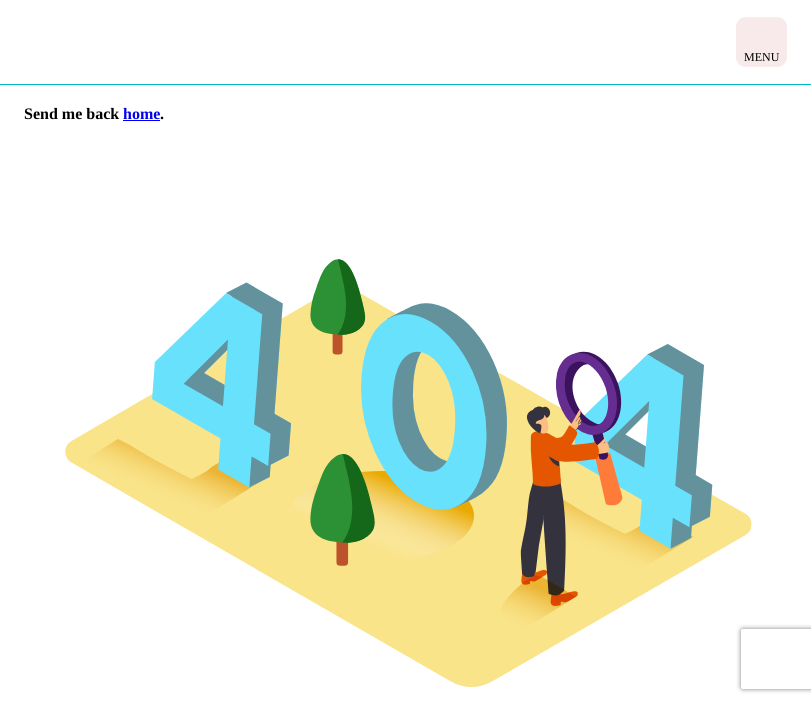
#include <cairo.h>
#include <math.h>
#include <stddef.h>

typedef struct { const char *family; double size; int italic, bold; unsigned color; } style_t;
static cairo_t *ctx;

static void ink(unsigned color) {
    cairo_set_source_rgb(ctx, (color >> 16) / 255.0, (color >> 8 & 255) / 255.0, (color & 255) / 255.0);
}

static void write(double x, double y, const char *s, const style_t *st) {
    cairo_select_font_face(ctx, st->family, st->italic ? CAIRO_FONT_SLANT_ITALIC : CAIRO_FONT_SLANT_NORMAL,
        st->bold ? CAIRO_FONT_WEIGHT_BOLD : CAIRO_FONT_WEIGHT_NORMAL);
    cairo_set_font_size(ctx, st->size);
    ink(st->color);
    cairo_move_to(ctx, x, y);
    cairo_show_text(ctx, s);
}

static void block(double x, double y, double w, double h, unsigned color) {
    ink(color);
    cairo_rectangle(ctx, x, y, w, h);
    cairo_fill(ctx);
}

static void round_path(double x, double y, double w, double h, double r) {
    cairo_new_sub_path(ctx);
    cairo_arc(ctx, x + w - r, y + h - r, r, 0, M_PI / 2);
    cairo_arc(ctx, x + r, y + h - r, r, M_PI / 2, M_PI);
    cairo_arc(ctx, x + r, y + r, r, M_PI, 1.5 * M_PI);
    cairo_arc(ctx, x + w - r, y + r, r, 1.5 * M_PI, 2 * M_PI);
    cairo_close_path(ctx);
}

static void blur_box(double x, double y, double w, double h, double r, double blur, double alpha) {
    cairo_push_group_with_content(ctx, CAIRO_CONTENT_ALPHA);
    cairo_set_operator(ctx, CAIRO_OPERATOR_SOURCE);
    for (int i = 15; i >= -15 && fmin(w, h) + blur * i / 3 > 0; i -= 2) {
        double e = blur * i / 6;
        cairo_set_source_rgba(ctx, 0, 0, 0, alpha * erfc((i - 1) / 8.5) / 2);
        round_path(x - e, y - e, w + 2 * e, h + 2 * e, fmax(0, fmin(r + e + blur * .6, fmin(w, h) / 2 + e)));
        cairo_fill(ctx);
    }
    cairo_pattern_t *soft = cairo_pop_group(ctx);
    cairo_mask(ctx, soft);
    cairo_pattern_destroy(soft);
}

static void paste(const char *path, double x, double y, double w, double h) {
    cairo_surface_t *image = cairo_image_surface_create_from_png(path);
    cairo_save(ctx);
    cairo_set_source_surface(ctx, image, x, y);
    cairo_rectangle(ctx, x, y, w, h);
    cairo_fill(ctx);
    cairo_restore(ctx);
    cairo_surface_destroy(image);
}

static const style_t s1 = {"Liberation Serif", 12, 0, 0, 0x000000};
static const style_t s2 = {"Liberation Serif", 16, 0, 1, 0x000000};
static const style_t s3 = {"Liberation Serif", 16, 0, 1, 0x0000ee};

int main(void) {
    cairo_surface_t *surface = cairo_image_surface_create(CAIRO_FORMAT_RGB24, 811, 703);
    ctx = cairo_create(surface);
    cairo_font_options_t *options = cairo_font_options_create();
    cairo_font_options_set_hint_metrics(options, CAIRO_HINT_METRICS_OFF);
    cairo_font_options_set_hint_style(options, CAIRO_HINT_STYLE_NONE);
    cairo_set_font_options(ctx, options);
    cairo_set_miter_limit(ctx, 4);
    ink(0xffffff);
    cairo_paint(ctx);
    block(0, 84, 811, 1, 0x00b6c5);
    ink(0xf8eaea);
    round_path(736, 17, 51, 50, 10);
    cairo_fill(ctx);
    write(744, 61, "MENU", &s1);
    write(24, 119, "Send me back", &s2);
    write(123, 119, "home", &s3);
    block(123, 120, 37, 1, 0x0000ee);
    write(160, 119, ".", &s2);
    paste("pic1.png", 65, 259, 687, 428);
    cairo_save(ctx);
    cairo_set_fill_rule(ctx, CAIRO_FILL_RULE_EVEN_ODD);
    cairo_new_path(ctx);
    cairo_move_to(ctx, 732, 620);
    cairo_line_to(ctx, 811, 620);
    cairo_line_to(ctx, 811, 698);
    cairo_line_to(ctx, 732, 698);
    cairo_close_path(ctx);
    cairo_move_to(ctx, 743, 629);
    cairo_line_to(ctx, 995, 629);
    cairo_curve_to(ctx, 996, 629, 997, 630, 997, 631);
    cairo_line_to(ctx, 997, 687);
    cairo_curve_to(ctx, 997, 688, 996, 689, 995, 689);
    cairo_line_to(ctx, 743, 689);
    cairo_curve_to(ctx, 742, 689, 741, 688, 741, 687);
    cairo_line_to(ctx, 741, 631);
    cairo_curve_to(ctx, 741, 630, 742, 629, 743, 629);
    cairo_close_path(ctx);
    cairo_clip(ctx);
    ink(0x808080);
    blur_box(741, 629, 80, 60, 2, 2.5, 1);
    cairo_restore(ctx);
    cairo_surface_write_to_png(surface, "screenshot.png");
    cairo_font_options_destroy(options);
    cairo_destroy(ctx);
    cairo_surface_destroy(surface);
    return 0;
}
